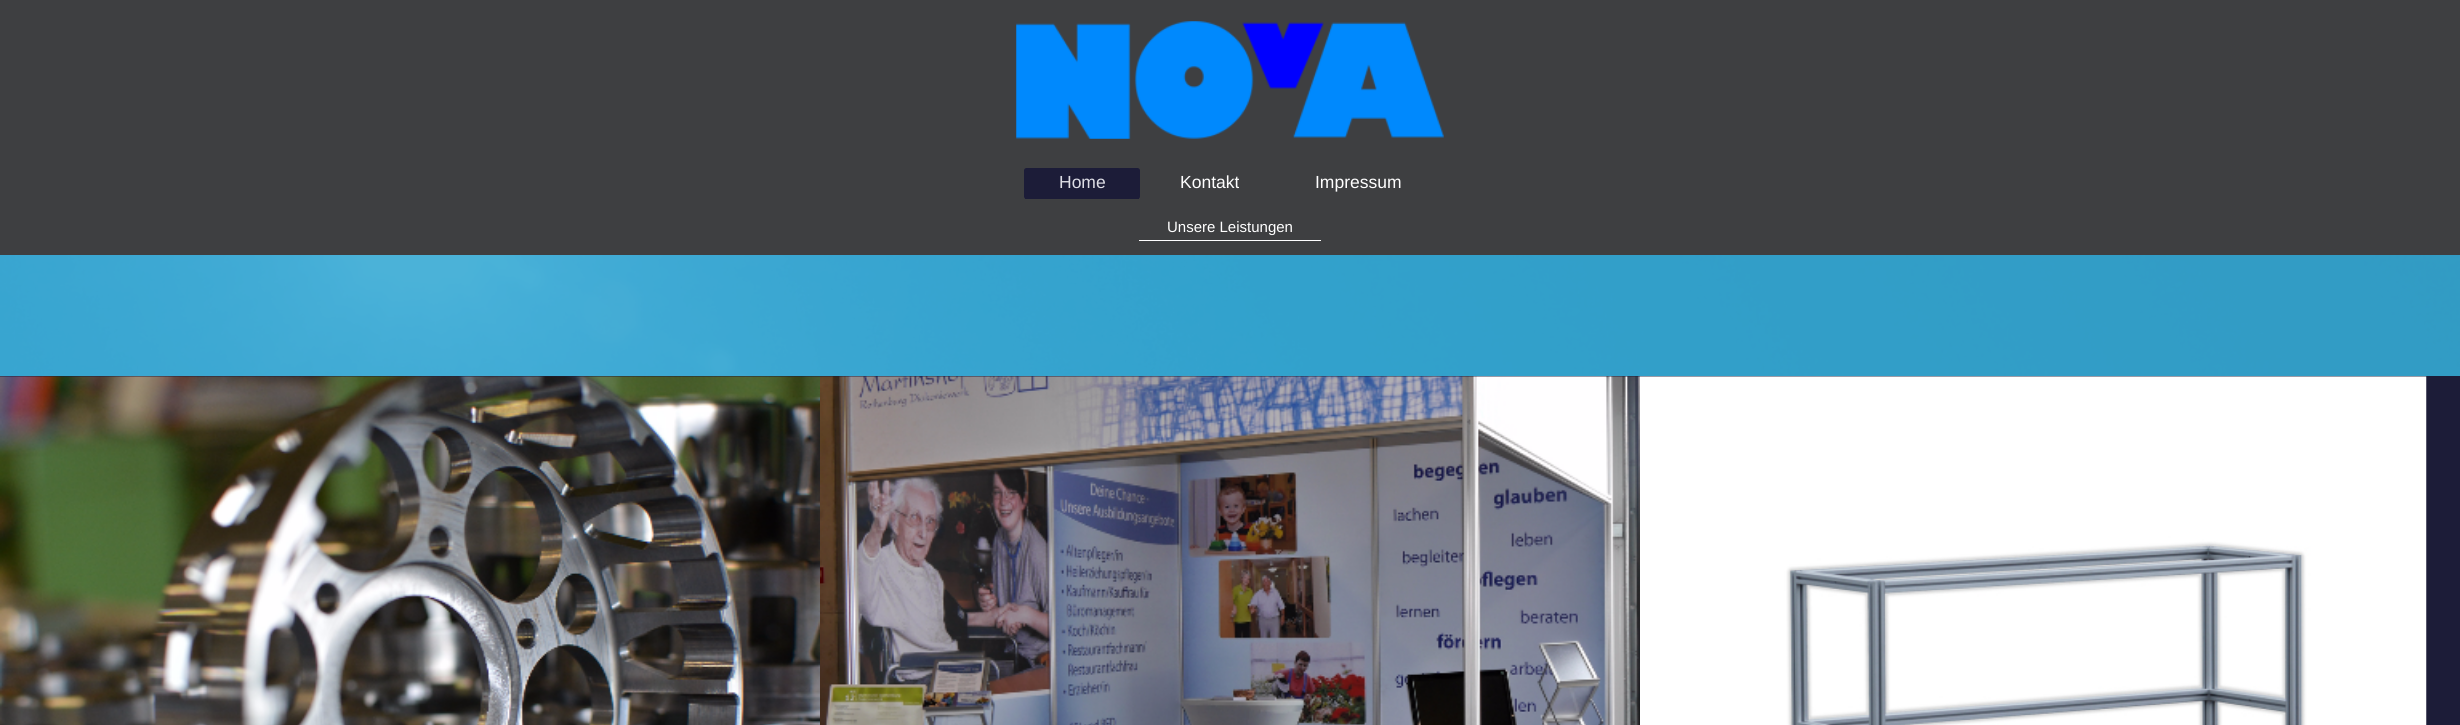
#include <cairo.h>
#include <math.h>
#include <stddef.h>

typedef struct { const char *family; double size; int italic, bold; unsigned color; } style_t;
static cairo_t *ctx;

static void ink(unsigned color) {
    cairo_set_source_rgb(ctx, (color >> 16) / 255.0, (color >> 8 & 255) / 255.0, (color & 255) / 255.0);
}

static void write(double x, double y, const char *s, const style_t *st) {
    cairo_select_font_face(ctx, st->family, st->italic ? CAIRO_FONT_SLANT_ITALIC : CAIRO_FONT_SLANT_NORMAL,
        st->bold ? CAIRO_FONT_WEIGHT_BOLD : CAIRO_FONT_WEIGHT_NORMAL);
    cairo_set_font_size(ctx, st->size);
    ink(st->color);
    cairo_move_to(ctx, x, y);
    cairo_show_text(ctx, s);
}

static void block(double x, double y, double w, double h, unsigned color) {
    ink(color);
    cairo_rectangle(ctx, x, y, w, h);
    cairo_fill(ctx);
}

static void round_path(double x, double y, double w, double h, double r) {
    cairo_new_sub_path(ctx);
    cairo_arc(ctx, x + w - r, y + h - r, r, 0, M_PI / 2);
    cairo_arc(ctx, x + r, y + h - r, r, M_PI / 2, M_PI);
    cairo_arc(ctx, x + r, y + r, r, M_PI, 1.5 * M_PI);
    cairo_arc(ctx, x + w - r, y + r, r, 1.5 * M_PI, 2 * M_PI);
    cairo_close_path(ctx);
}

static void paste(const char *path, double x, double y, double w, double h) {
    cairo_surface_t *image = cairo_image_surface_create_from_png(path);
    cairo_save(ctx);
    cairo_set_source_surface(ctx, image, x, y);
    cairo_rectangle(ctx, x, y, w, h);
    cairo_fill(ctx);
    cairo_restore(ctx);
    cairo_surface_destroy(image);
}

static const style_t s1 = {"Liberation Sans", 17.5, 0, 0, 0xdedee6};
static const style_t s2 = {"Liberation Sans", 17.5, 0, 0, 0xffffff};
static const style_t s3 = {"Liberation Sans", 15, 0, 0, 0xffffff};

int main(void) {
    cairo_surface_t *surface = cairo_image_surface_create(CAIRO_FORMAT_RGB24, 2460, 725);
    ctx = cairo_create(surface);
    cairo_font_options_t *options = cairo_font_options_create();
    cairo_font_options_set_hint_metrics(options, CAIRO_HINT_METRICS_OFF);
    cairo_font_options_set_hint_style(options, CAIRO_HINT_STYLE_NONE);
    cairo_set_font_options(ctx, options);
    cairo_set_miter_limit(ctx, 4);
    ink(0xffffff);
    cairo_paint(ctx);
    paste("pic1.png", 0, 255, 2460, 121);
    block(0, 0, 2460, 255, 0x3e3f41);
    paste("pic2.png", 1016, 21, 428, 118);
    ink(0x1c1c38);
    round_path(1024, 168, 116, 31, 2.5);
    cairo_fill(ctx);
    block(1025, 198, 114, 1, 0x1c1c38);
    write(1059, 188, "Home", &s1);
    write(1180, 188, "Kontakt", &s2);
    write(1315, 188, "Impressum", &s2);
    block(1139, 240, 182, 1, 0xffffff);
    write(1167, 232, "Unsere Leistungen", &s3);
    cairo_set_source_rgba(ctx, 0.22, 0.667, 0.831, 0.9);
    cairo_rectangle(ctx, 0, 255, 2460, 121);
    cairo_fill(ctx);
    block(0, 376, 2460, 349, 0x1c1c38);
    paste("pic3.png", 0, 376, 820, 349);
    paste("pic4.png", 820, 376, 820, 349);
    paste("pic5.png", 1640, 376, 787, 349);
    cairo_surface_write_to_png(surface, "screenshot.png");
    cairo_font_options_destroy(options);
    cairo_destroy(ctx);
    cairo_surface_destroy(surface);
    return 0;
}
